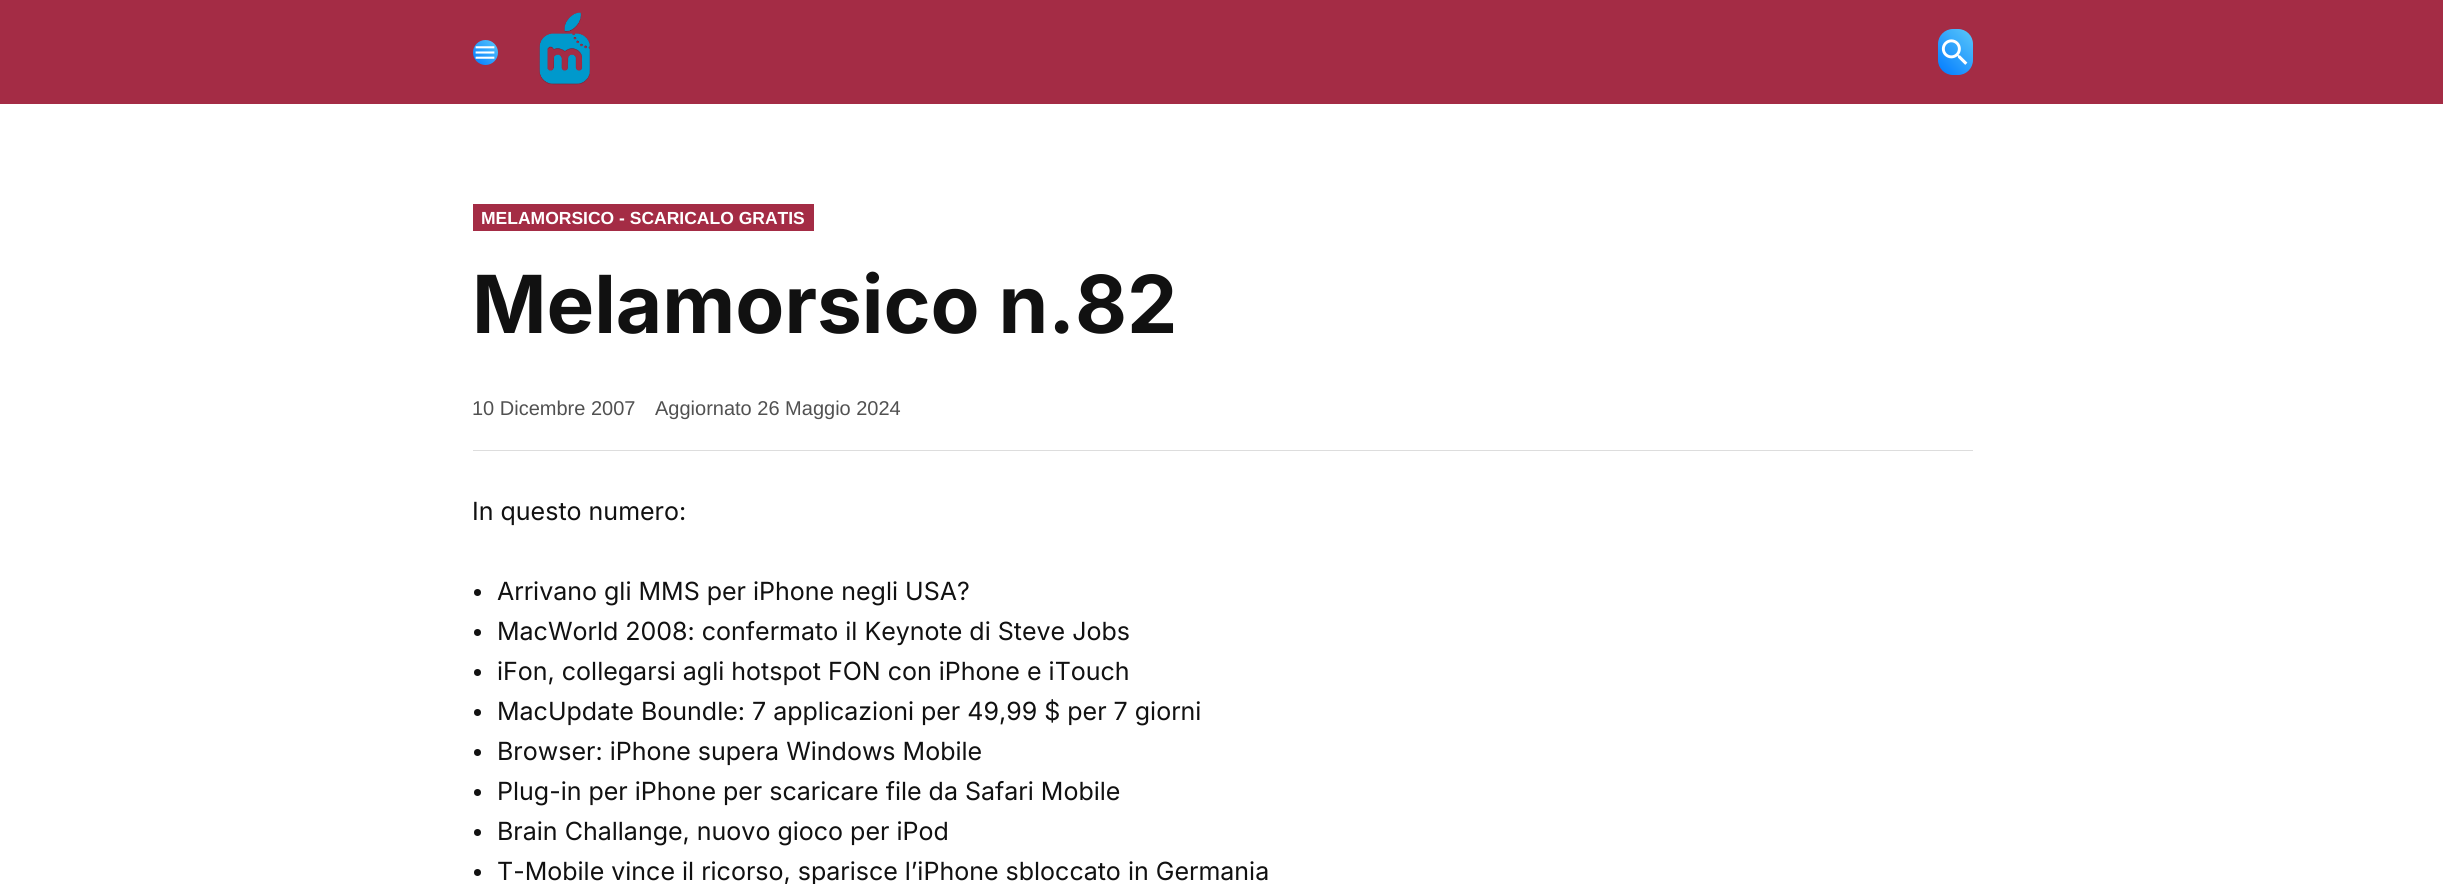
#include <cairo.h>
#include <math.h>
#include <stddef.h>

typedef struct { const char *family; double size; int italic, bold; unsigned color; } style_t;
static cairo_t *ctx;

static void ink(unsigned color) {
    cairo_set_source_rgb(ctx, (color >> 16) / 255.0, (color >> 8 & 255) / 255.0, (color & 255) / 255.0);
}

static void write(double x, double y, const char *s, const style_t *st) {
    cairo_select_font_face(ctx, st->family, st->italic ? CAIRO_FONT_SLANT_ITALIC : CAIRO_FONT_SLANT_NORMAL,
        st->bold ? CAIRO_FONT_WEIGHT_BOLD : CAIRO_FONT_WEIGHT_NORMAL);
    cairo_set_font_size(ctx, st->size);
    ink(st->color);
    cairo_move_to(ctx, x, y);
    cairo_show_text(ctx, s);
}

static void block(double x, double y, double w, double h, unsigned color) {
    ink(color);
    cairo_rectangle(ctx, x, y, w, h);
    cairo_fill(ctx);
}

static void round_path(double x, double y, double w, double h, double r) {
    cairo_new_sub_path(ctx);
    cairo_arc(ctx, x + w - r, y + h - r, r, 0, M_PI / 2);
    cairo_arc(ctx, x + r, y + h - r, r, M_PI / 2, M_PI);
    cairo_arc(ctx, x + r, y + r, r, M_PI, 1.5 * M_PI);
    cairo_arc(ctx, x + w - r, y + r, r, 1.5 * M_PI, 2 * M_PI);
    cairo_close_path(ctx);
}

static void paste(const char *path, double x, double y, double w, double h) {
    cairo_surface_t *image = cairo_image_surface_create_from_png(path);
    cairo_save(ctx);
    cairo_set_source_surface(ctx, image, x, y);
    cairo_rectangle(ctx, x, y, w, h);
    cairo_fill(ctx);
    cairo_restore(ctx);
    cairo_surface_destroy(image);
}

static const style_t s1 = {"Liberation Sans", 17.5, 0, 1, 0xffffff};
static const style_t s2 = {"Inter", 80, 0, 1, 0x111111};
static const style_t s3 = {"Liberation Sans", 20, 0, 0, 0x515151};
static const style_t s4 = {"Inter", 25, 0, 0, 0x111111};

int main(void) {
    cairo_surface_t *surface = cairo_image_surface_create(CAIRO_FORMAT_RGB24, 2443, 884);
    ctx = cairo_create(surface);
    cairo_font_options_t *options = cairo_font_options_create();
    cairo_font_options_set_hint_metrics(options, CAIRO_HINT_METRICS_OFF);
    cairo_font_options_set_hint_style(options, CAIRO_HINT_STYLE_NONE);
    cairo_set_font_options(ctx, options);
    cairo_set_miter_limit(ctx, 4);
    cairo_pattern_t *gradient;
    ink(0xffffff);
    cairo_paint(ctx);
    block(0, 0, 2443, 104, 0xa42c45);
    gradient = cairo_pattern_create_linear(473, 65, 498, 40);
    cairo_pattern_add_color_stop_rgba(gradient, 0, 0, 0.478, 1, 1);
    cairo_pattern_add_color_stop_rgba(gradient, 1, 0.353, 0.784, 0.98, 1);
    cairo_set_source(ctx, gradient);
    cairo_pattern_destroy(gradient);
    cairo_arc(ctx, 485.5, 52.5, 12.5, 0, 2 * M_PI);
    cairo_fill(ctx);
    paste("pic1.png", 475, 46, 20, 13);
    paste("pic2.png", 539, 12, 51, 73);
    gradient = cairo_pattern_create_linear(1935, 72, 1975, 32);
    cairo_pattern_add_color_stop_rgba(gradient, 0, 0, 0.478, 1, 1);
    cairo_pattern_add_color_stop_rgba(gradient, 1, 0.353, 0.784, 0.98, 1);
    cairo_set_source(ctx, gradient);
    cairo_pattern_destroy(gradient);
    round_path(1938, 29, 35, 46, 15);
    cairo_fill(ctx);
    paste("pic3.png", 1941, 39, 27, 26);
    block(473, 450, 1500, 1, 0xdddddd);
    block(473, 204, 341, 27, 0xa42c45);
    write(481, 224, "MELAMORSICO - SCARICALO GRATIS", &s1);
    write(472, 333, "Melamorsico n.82", &s2);
    write(472, 415, "10 Dicembre 2007", &s3);
    write(655, 415, "Aggiornato 26 Maggio 2024", &s3);
    write(472, 520, "In questo numero:", &s4);
    cairo_new_path(ctx);
    cairo_arc(ctx, 477.5, 592.5, 3.5, 0, 2 * M_PI);
    cairo_fill(ctx);
    write(497, 600, "Arrivano gli MMS per iPhone negli USA?", &s4);
    cairo_new_path(ctx);
    cairo_arc(ctx, 477.5, 632.5, 3.5, 0, 2 * M_PI);
    cairo_fill(ctx);
    write(497, 640, "MacWorld 2008: confermato il Keynote di Steve Jobs", &s4);
    cairo_new_path(ctx);
    cairo_arc(ctx, 477.5, 672.5, 3.5, 0, 2 * M_PI);
    cairo_fill(ctx);
    write(497, 680, "iFon, collegarsi agli hotspot FON con iPhone e iTouch", &s4);
    cairo_new_path(ctx);
    cairo_arc(ctx, 477.5, 712.5, 3.5, 0, 2 * M_PI);
    cairo_fill(ctx);
    write(497, 720, "MacUpdate Boundle: 7 applicazioni per 49,99 $ per 7 giorni", &s4);
    cairo_new_path(ctx);
    cairo_arc(ctx, 477.5, 752.5, 3.5, 0, 2 * M_PI);
    cairo_fill(ctx);
    write(497, 760, "Browser: iPhone supera Windows Mobile", &s4);
    cairo_new_path(ctx);
    cairo_arc(ctx, 477.5, 792.5, 3.5, 0, 2 * M_PI);
    cairo_fill(ctx);
    write(497, 800, "Plug-in per iPhone per scaricare file da Safari Mobile", &s4);
    cairo_new_path(ctx);
    cairo_arc(ctx, 477.5, 832.5, 3.5, 0, 2 * M_PI);
    cairo_fill(ctx);
    write(497, 840, "Brain Challange, nuovo gioco per iPod", &s4);
    cairo_new_path(ctx);
    cairo_arc(ctx, 477.5, 872.5, 3.5, 0, 2 * M_PI);
    cairo_fill(ctx);
    write(497, 880, "T-Mobile vince il ricorso, sparisce l’iPhone sbloccato in Germania", &s4);
    cairo_surface_write_to_png(surface, "screenshot.png");
    cairo_font_options_destroy(options);
    cairo_destroy(ctx);
    cairo_surface_destroy(surface);
    return 0;
}
